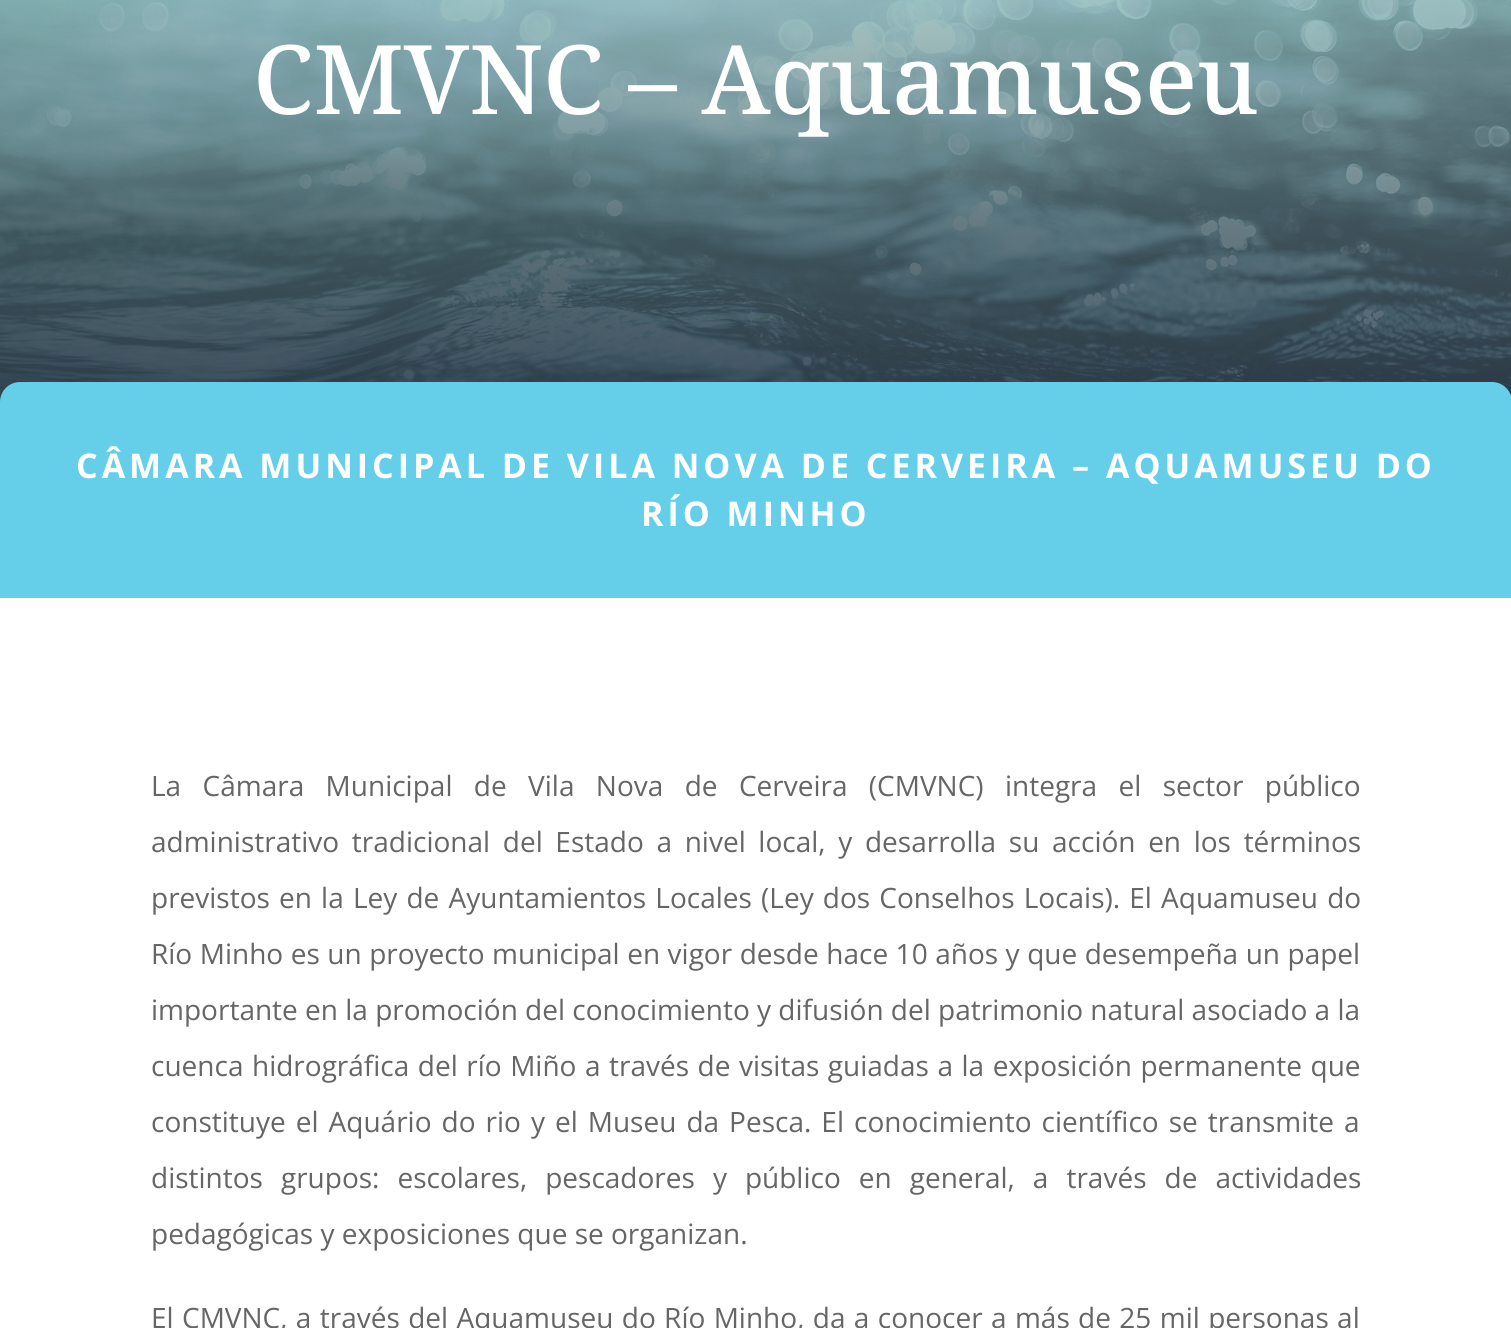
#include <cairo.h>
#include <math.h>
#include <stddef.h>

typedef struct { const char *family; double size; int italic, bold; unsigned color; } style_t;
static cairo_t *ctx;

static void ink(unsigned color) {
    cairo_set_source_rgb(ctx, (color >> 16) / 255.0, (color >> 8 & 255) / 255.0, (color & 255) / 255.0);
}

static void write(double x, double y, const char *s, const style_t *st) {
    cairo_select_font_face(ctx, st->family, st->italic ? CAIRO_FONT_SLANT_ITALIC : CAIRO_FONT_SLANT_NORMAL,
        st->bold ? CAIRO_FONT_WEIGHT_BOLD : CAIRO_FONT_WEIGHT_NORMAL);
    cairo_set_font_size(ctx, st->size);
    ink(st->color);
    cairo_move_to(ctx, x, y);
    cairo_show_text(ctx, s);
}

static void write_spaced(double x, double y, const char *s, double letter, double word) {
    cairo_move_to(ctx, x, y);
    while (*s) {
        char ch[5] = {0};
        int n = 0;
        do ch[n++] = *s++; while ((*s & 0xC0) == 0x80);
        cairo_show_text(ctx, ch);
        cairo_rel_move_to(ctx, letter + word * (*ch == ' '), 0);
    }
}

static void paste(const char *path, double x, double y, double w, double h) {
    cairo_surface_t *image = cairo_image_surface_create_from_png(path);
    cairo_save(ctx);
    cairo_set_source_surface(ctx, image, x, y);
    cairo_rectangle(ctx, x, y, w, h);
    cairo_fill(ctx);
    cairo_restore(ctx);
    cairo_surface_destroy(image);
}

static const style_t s1 = {"Noto Serif Medium", 96, 0, 0, 0xffffff};
static const style_t s2 = {"Open Sans", 28, 0, 0, 0x666666};

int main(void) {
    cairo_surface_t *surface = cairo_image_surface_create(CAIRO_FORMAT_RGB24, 1511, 1328);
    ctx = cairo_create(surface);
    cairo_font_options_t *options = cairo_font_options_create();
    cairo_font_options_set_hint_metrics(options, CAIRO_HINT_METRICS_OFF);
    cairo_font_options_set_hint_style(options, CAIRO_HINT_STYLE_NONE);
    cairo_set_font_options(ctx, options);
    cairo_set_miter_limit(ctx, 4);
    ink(0xffffff);
    cairo_paint(ctx);
    paste("pic1.png", 0, 0, 1511, 402);
    write(253, 114, "CMVNC – Aquamuseu", &s1);
    ink(0x65cfe9);
    cairo_new_path(ctx);
    cairo_move_to(ctx, 20, 382);
    cairo_line_to(ctx, 1492, 382);
    cairo_curve_to(ctx, 1503, 382, 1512, 391, 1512, 402);
    cairo_line_to(ctx, 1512, 598);
    cairo_line_to(ctx, 0, 598);
    cairo_line_to(ctx, 0, 402);
    cairo_curve_to(ctx, 0, 391, 9, 382, 20, 382);
    cairo_close_path(ctx);
    cairo_fill(ctx);
    cairo_select_font_face(ctx, "Open Sans", CAIRO_FONT_SLANT_NORMAL, CAIRO_FONT_WEIGHT_BOLD);
    cairo_set_font_size(ctx, 34);
    ink(0xffffff);
    write_spaced(76, 478, "CÂMARA MUNICIPAL DE VILA NOVA DE CERVEIRA – AQUAMUSEU DO", 4, 0);
    write_spaced(641, 526, "RÍO MINHO", 4, 0);
    cairo_select_font_face(ctx, "Open Sans", CAIRO_FONT_SLANT_NORMAL, CAIRO_FONT_WEIGHT_NORMAL);
    cairo_set_font_size(ctx, 28);
    ink(0x666666);
    write_spaced(151, 796, "La Câmara Municipal de Vila Nova de Cerveira (CMVNC) integra el sector público", 0, 14.1);
    write_spaced(151, 852, "administrativo tradicional del Estado a nivel local, y desarrolla su acción en los términos", 0, 5.4);
    write_spaced(151, 908, "previstos en la Ley de Ayuntamientos Locales (Ley dos Conselhos Locais). El Aquamuseu do", 0, 1.9);
    write_spaced(151, 964, "Río Minho es un proyecto municipal en vigor desde hace 10 años y que desempeña un papel", 0, 0.25);
    write(151, 1020, "importante en la promoción del conocimiento y difusión del patrimonio natural asociado a la", &s2);
    write_spaced(151, 1076, "cuenca hidrográfica del río Miño a través de visitas guiadas a la exposición permanente que", 0, 1.25);
    write_spaced(151, 1132, "constituye el Aquário do rio y el Museu da Pesca. El conocimiento científico se transmite a", 0, 2.75);
    write_spaced(151, 1188, "distintos grupos: escolares, pescadores y público en general, a través de actividades", 0, 10.75);
    write(151, 1244, "pedagógicas y exposiciones que se organizan.", &s2);
    write_spaced(151, 1328, "El CMVNC, a través del Aquamuseu do Río Minho, da a conocer a más de 25 mil personas al", 0, 1.1);
    cairo_surface_write_to_png(surface, "screenshot.png");
    cairo_font_options_destroy(options);
    cairo_destroy(ctx);
    cairo_surface_destroy(surface);
    return 0;
}
